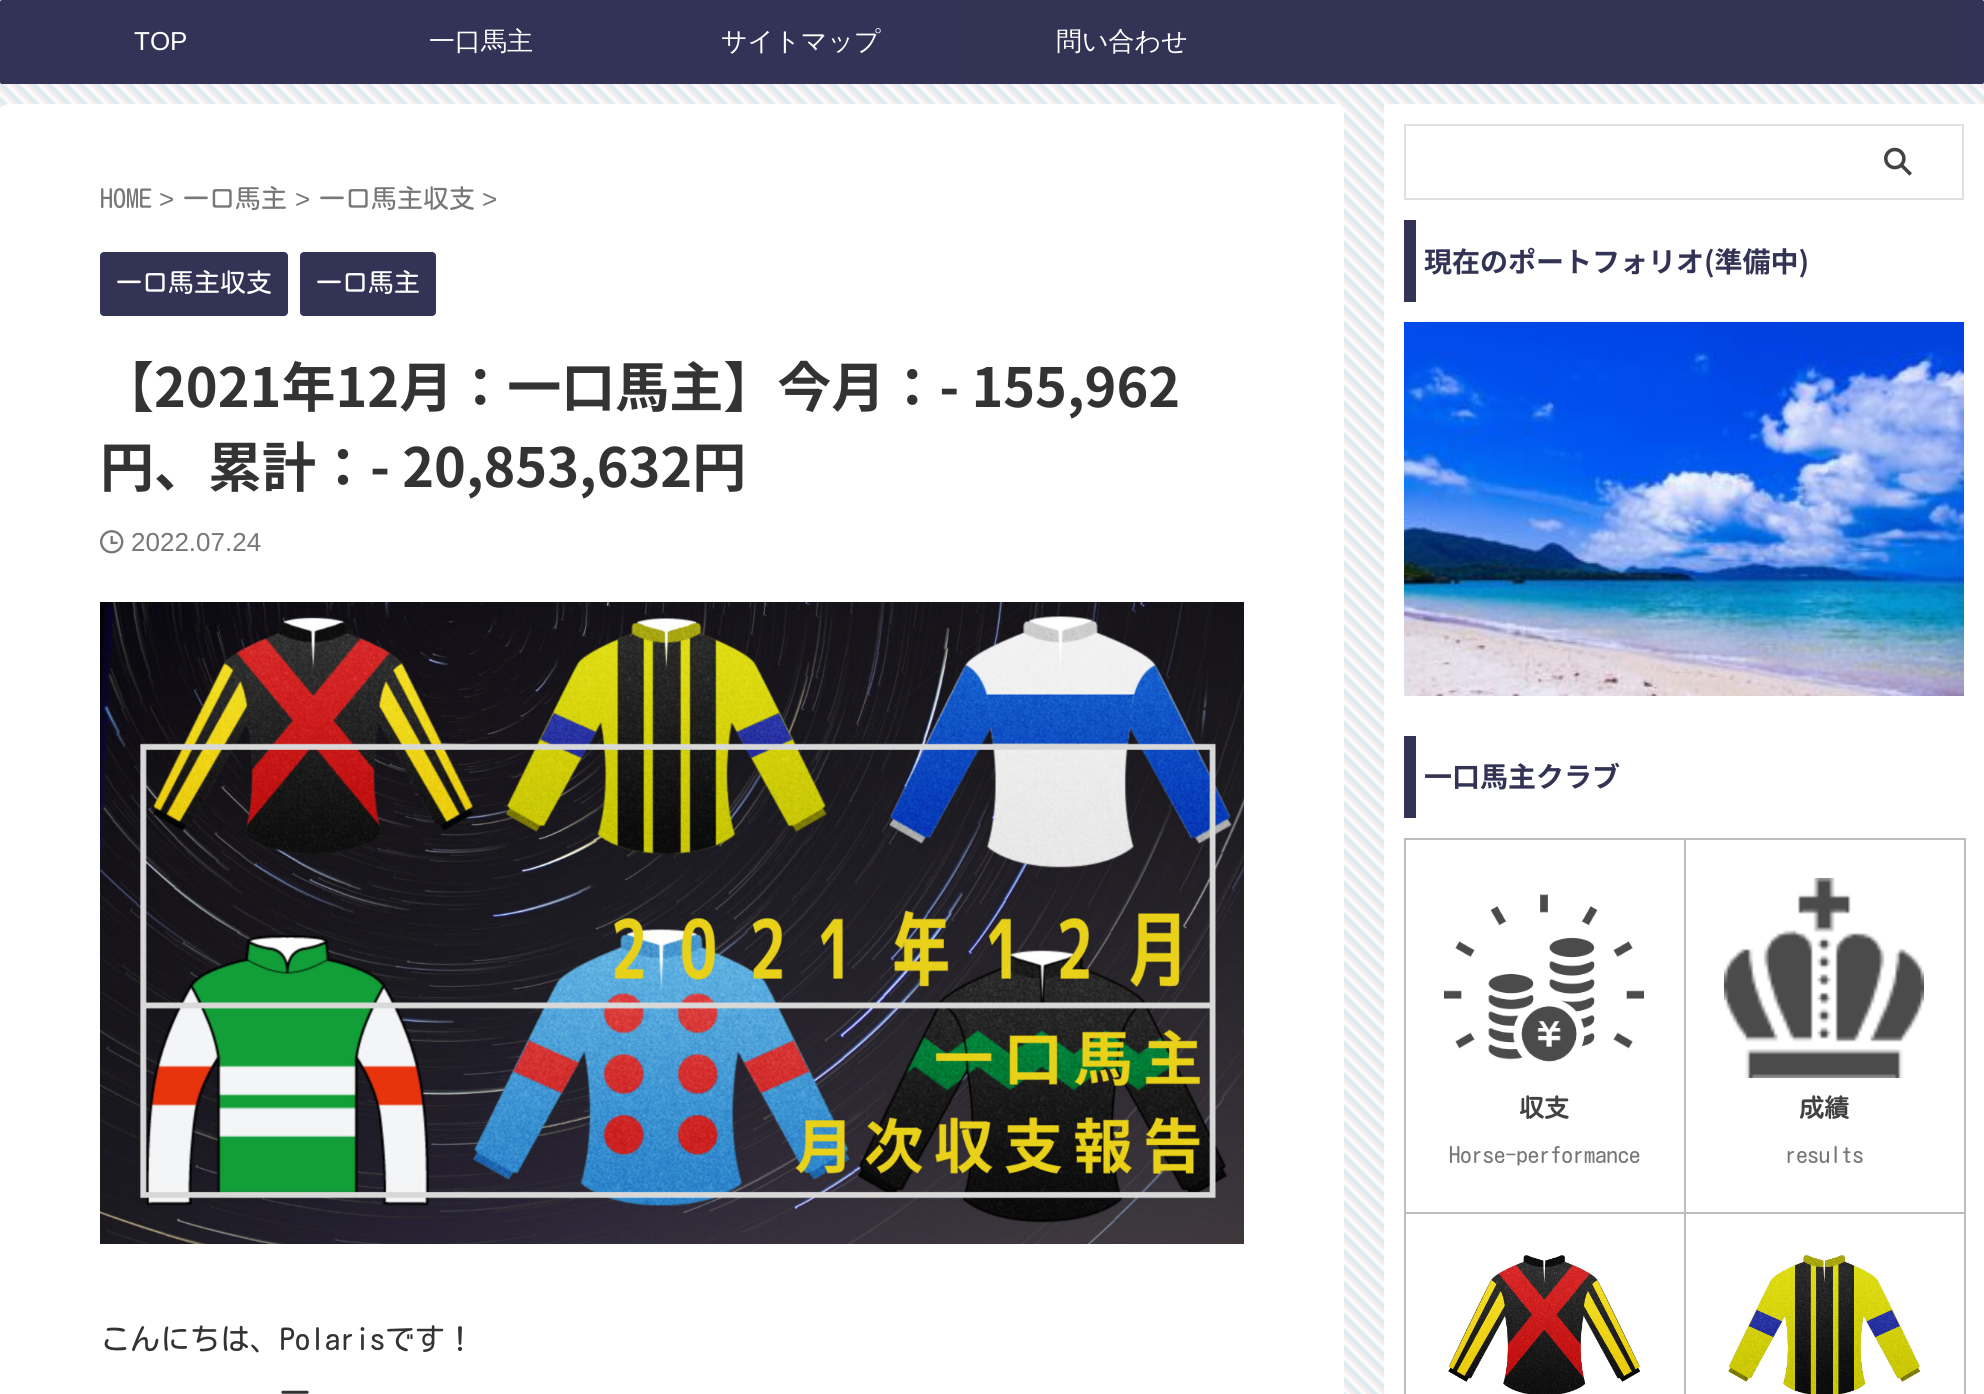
#include <cairo.h>
#include <math.h>
#include <stddef.h>

typedef struct { const char *family; double size; int italic, bold; unsigned color; } style_t;
static cairo_t *ctx;

static void ink(unsigned color) {
    cairo_set_source_rgb(ctx, (color >> 16) / 255.0, (color >> 8 & 255) / 255.0, (color & 255) / 255.0);
}

static void write(double x, double y, const char *s, const style_t *st) {
    cairo_select_font_face(ctx, st->family, st->italic ? CAIRO_FONT_SLANT_ITALIC : CAIRO_FONT_SLANT_NORMAL,
        st->bold ? CAIRO_FONT_WEIGHT_BOLD : CAIRO_FONT_WEIGHT_NORMAL);
    cairo_set_font_size(ctx, st->size);
    ink(st->color);
    cairo_move_to(ctx, x, y);
    cairo_show_text(ctx, s);
}

static void block(double x, double y, double w, double h, unsigned color) {
    ink(color);
    cairo_rectangle(ctx, x, y, w, h);
    cairo_fill(ctx);
}

static void round_path(double x, double y, double w, double h, double r) {
    cairo_new_sub_path(ctx);
    cairo_arc(ctx, x + w - r, y + h - r, r, 0, M_PI / 2);
    cairo_arc(ctx, x + r, y + h - r, r, M_PI / 2, M_PI);
    cairo_arc(ctx, x + r, y + r, r, M_PI, 1.5 * M_PI);
    cairo_arc(ctx, x + w - r, y + r, r, 1.5 * M_PI, 2 * M_PI);
    cairo_close_path(ctx);
}

static void paste(const char *path, double x, double y, double w, double h) {
    cairo_surface_t *image = cairo_image_surface_create_from_png(path);
    cairo_save(ctx);
    cairo_set_source_surface(ctx, image, x, y);
    cairo_rectangle(ctx, x, y, w, h);
    cairo_fill(ctx);
    cairo_restore(ctx);
    cairo_surface_destroy(image);
}

static const style_t s1 = {"Liberation Sans", 26, 0, 0, 0xffffff};
static const style_t s2 = {"WenQuanYi Zen Hei Medium", 26, 0, 0, 0xffffff};
static const style_t s3 = {"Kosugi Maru", 26, 0, 0, 0x777777};
static const style_t s4 = {"Liberation Sans", 26, 0, 0, 0x777777};
static const style_t s5 = {"Kosugi Maru", 26, 0, 0, 0xffffff};
static const style_t s6 = {"Noto Sans JP", 54, 0, 1, 0x333333};
static const style_t s7 = {"Kosugi Maru", 30, 0, 0, 0x333333};
static const style_t s8 = {"Noto Sans JP", 28, 0, 1, 0x333355};
static const style_t s9 = {"Kosugi Maru", 25, 0, 1, 0x424242};
static const style_t s10 = {"Kosugi Maru", 22.5, 0, 0, 0x777777};

int main(void) {
    cairo_surface_t *surface = cairo_image_surface_create(CAIRO_FORMAT_RGB24, 1984, 1394);
    ctx = cairo_create(surface);
    cairo_font_options_t *options = cairo_font_options_create();
    cairo_font_options_set_hint_metrics(options, CAIRO_HINT_METRICS_OFF);
    cairo_font_options_set_hint_style(options, CAIRO_HINT_STYLE_NONE);
    cairo_set_font_options(ctx, options);
    cairo_set_miter_limit(ctx, 4);
    cairo_pattern_t *gradient;
    ink(0xffffff);
    cairo_paint(ctx);
    paste("pic1.png", 0, 0, 1984, 1394);
    gradient = cairo_pattern_create_linear(2, 42, -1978, 42);
    cairo_pattern_add_color_stop_rgba(gradient, 0, 0.2, 0.2, 0.333, 1);
    cairo_pattern_add_color_stop_rgba(gradient, 1, 0.2, 0.2, 0.345, 1);
    cairo_set_source(ctx, gradient);
    cairo_pattern_destroy(gradient);
    cairo_new_path(ctx);
    cairo_move_to(ctx, 2, 0);
    cairo_line_to(ctx, 2, 84);
    cairo_curve_to(ctx, 1, 84, 0, 83, 0, 82);
    cairo_line_to(ctx, 0, 2);
    cairo_curve_to(ctx, 0, 1, 1, 0, 2, 0);
    cairo_close_path(ctx);
    cairo_fill(ctx);
    gradient = cairo_pattern_create_linear(1982, 42, 2, 42);
    cairo_pattern_add_color_stop_rgba(gradient, 0, 0.2, 0.2, 0.333, 1);
    cairo_pattern_add_color_stop_rgba(gradient, 1, 0.2, 0.2, 0.345, 1);
    cairo_set_source(ctx, gradient);
    cairo_pattern_destroy(gradient);
    cairo_rectangle(ctx, 2, 0, 1980, 84);
    cairo_fill(ctx);
    gradient = cairo_pattern_create_linear(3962, 42, 1982, 42);
    cairo_pattern_add_color_stop_rgba(gradient, 0, 0.2, 0.2, 0.333, 1);
    cairo_pattern_add_color_stop_rgba(gradient, 1, 0.2, 0.2, 0.345, 1);
    cairo_set_source(ctx, gradient);
    cairo_pattern_destroy(gradient);
    cairo_new_path(ctx);
    cairo_move_to(ctx, 1982, 0);
    cairo_curve_to(ctx, 1983, 0, 1984, 1, 1984, 2);
    cairo_line_to(ctx, 1984, 82);
    cairo_curve_to(ctx, 1984, 83, 1983, 84, 1982, 84);
    cairo_close_path(ctx);
    cairo_fill(ctx);
    cairo_new_path(ctx);
    cairo_move_to(ctx, 1.5, 1.5);
    cairo_line_to(ctx, 1982.5, 1.5);
    ink(0x333355);
    cairo_stroke(ctx);
    cairo_new_path(ctx);
    cairo_move_to(ctx, 1982.5, 1.5);
    cairo_line_to(ctx, 1982.5, 82.5);
    ink(0x333358);
    cairo_stroke(ctx);
    cairo_new_path(ctx);
    cairo_move_to(ctx, 1982.5, 82.5);
    cairo_line_to(ctx, 1.5, 82.5);
    ink(0x333355);
    cairo_stroke(ctx);
    cairo_new_path(ctx);
    cairo_move_to(ctx, 1.5, 82.5);
    cairo_line_to(ctx, 1.5, 1.5);
    ink(0x333358);
    cairo_stroke(ctx);
    block(320, 2, 2, 80, 0x333355);
    write(134, 50, "TOP", &s1);
    write(429, 50, "一口馬主", &s2);
    write(721, 50, "サイトマップ", &s2);
    write(1056, 50, "問い合わせ", &s2);
    round_path(0, 104, 1344, 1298, 8);
    cairo_fill(ctx);
    write(100, 208, "HOME", &s3);
    write(159, 208, ">", &s4);
    write(183, 208, "一口馬主", &s3);
    write(295, 208, ">", &s4);
    write(319, 208, "一口馬主収支", &s3);
    write(482, 208, ">", &s4);
    ink(0x333355);
    round_path(100, 252, 188, 64, 4);
    cairo_fill(ctx);
    write(116, 292, "一口馬主収支", &s5);
    ink(0x333355);
    round_path(300, 252, 136, 64, 4);
    cairo_fill(ctx);
    write(316, 292, "一口馬主", &s5);
    write(100, 407, "【2021年12月：一口馬主】今月：- 155,962", &s6);
    write(100, 487, "円、累計：- 20,853,632円", &s6);
    paste("pic2.png", 100, 530, 24, 24);
    write(131, 551, "2022.07.24", &s4);
    paste("pic3.png", 100, 602, 1144, 642);
    write(100, 1350, "こんにちは、Polarisです！", &s7);
    write(280, 1404, "一", &s7);
    block(1384, 104, 600, 1290, 0xffffff);
    cairo_rectangle(ctx, 1405, 125, 558, 74);
    ink(0xe0e0e0);
    cairo_stroke(ctx);
    paste("pic4.png", 1884, 147, 28, 29);
    block(1404, 220, 12, 82, 0x333355);
    write(1424, 272, "現在のポートフォリオ(準備中)", &s8);
    paste("pic5.png", 1404, 322, 560, 374);
    block(1404, 736, 12, 82, 0x333355);
    write(1424, 787, "一口馬主クラブ", &s8);
    cairo_save(ctx);
    cairo_rectangle(ctx, 1404, 838, 280, 374);
    cairo_clip(ctx);
    ink(0xbdbdbd);
    cairo_set_fill_rule(ctx, CAIRO_FILL_RULE_EVEN_ODD);
    cairo_new_path(ctx);
    cairo_move_to(ctx, 1206, 640);
    cairo_line_to(ctx, 1882, 640);
    cairo_line_to(ctx, 1882, 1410);
    cairo_line_to(ctx, 1206, 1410);
    cairo_close_path(ctx);
    cairo_move_to(ctx, 1406, 840);
    cairo_line_to(ctx, 1686, 840);
    cairo_line_to(ctx, 1686, 1214);
    cairo_line_to(ctx, 1406, 1214);
    cairo_close_path(ctx);
    cairo_fill(ctx);
    cairo_restore(ctx);
    paste("pic6.png", 1444, 894, 200, 168);
    write(1519, 1117, "収支", &s9);
    write(1449, 1163, "Horse-performance", &s10);
    block(1964, 838, 2, 2, 0xbdbdbd);
    cairo_new_path(ctx);
    cairo_move_to(ctx, 1686, 1212);
    cairo_line_to(ctx, 1686, 1214);
    cairo_line_to(ctx, 1966, 1214);
    cairo_line_to(ctx, 1966, 840);
    cairo_line_to(ctx, 1964, 840);
    cairo_line_to(ctx, 1964, 1212);
    cairo_close_path(ctx);
    cairo_fill(ctx);
    cairo_save(ctx);
    cairo_rectangle(ctx, 1684, 838, 280, 374);
    cairo_clip(ctx);
    cairo_set_fill_rule(ctx, CAIRO_FILL_RULE_EVEN_ODD);
    cairo_new_path(ctx);
    cairo_move_to(ctx, 1486, 640);
    cairo_line_to(ctx, 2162, 640);
    cairo_line_to(ctx, 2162, 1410);
    cairo_line_to(ctx, 1486, 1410);
    cairo_close_path(ctx);
    cairo_move_to(ctx, 1686, 840);
    cairo_line_to(ctx, 1966, 840);
    cairo_line_to(ctx, 1966, 1214);
    cairo_line_to(ctx, 1686, 1214);
    cairo_close_path(ctx);
    cairo_fill(ctx);
    cairo_restore(ctx);
    paste("pic7.png", 1724, 878, 200, 200);
    write(1799, 1117, "成績", &s9);
    write(1785, 1163, "results", &s10);
    cairo_save(ctx);
    cairo_rectangle(ctx, 1404, 1212, 280, 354);
    cairo_clip(ctx);
    ink(0xbdbdbd);
    cairo_set_fill_rule(ctx, CAIRO_FILL_RULE_EVEN_ODD);
    cairo_new_path(ctx);
    cairo_move_to(ctx, 1206, 1014);
    cairo_line_to(ctx, 1882, 1014);
    cairo_line_to(ctx, 1882, 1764);
    cairo_line_to(ctx, 1206, 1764);
    cairo_close_path(ctx);
    cairo_move_to(ctx, 1406, 1214);
    cairo_line_to(ctx, 1686, 1214);
    cairo_line_to(ctx, 1686, 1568);
    cairo_line_to(ctx, 1406, 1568);
    cairo_close_path(ctx);
    cairo_fill(ctx);
    cairo_restore(ctx);
    paste("pic8.png", 1448, 1255, 192, 139);
    block(1964, 1212, 2, 182, 0xbdbdbd);
    cairo_save(ctx);
    cairo_rectangle(ctx, 1684, 1212, 280, 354);
    cairo_clip(ctx);
    cairo_set_fill_rule(ctx, CAIRO_FILL_RULE_EVEN_ODD);
    cairo_new_path(ctx);
    cairo_move_to(ctx, 1486, 1014);
    cairo_line_to(ctx, 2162, 1014);
    cairo_line_to(ctx, 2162, 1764);
    cairo_line_to(ctx, 1486, 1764);
    cairo_close_path(ctx);
    cairo_move_to(ctx, 1686, 1214);
    cairo_line_to(ctx, 1966, 1214);
    cairo_line_to(ctx, 1966, 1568);
    cairo_line_to(ctx, 1686, 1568);
    cairo_close_path(ctx);
    cairo_fill(ctx);
    cairo_restore(ctx);
    paste("pic9.png", 1728, 1255, 192, 139);
    cairo_surface_write_to_png(surface, "screenshot.png");
    cairo_font_options_destroy(options);
    cairo_destroy(ctx);
    cairo_surface_destroy(surface);
    return 0;
}
